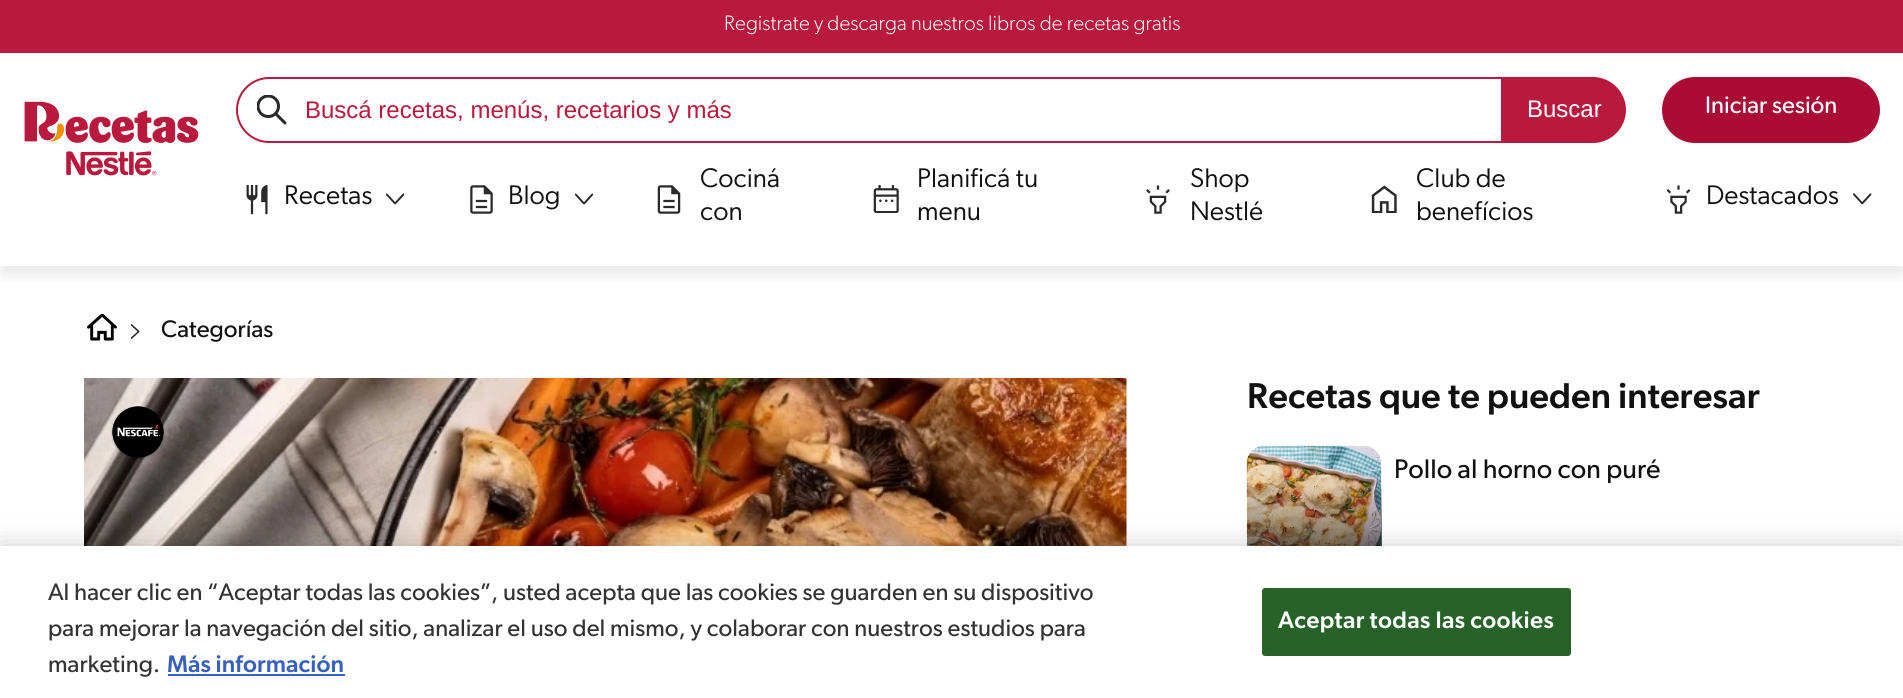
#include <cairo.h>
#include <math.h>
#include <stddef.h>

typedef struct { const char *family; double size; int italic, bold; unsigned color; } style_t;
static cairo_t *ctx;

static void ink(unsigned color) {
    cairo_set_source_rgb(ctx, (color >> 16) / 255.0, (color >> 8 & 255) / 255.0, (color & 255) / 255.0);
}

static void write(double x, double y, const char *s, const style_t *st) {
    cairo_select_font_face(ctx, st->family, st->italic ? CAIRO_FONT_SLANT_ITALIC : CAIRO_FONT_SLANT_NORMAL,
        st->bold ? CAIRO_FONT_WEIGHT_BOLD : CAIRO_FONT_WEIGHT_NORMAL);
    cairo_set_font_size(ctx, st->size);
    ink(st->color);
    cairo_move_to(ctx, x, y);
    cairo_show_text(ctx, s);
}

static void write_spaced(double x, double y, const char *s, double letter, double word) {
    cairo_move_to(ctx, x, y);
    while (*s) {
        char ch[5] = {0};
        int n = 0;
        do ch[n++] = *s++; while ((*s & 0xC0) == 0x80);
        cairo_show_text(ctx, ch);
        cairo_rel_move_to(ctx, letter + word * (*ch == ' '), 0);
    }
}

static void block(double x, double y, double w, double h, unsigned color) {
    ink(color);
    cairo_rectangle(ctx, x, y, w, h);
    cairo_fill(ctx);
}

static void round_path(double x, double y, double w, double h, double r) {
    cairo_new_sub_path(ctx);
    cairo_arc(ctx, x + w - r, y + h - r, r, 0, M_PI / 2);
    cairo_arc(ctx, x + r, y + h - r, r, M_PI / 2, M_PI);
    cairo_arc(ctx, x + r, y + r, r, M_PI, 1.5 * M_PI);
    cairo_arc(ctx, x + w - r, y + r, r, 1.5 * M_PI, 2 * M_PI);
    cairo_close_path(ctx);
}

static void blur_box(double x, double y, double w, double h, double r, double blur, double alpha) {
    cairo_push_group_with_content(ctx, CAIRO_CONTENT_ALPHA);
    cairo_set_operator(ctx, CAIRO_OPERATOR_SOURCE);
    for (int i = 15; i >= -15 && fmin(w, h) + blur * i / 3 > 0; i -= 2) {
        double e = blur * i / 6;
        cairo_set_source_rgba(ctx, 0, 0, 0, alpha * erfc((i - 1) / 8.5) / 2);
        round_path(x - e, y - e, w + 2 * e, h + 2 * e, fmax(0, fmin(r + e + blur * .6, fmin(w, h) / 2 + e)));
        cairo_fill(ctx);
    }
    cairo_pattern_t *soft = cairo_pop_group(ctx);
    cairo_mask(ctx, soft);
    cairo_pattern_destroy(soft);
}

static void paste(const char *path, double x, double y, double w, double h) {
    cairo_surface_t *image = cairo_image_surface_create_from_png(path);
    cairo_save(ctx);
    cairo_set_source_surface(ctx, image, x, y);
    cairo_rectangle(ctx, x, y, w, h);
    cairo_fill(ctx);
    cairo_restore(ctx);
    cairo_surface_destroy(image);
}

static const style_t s1 = {"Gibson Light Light", 21, 0, 0, 0xffffff};
static const style_t s2 = {"Liberation Sans", 24, 0, 0, 0xb9193c};
static const style_t s3 = {"Liberation Sans", 24, 0, 0, 0xffffff};
static const style_t s4 = {"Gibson", 24, 0, 0, 0xffffff};
static const style_t s5 = {"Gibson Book", 27, 0, 0, 0x111111};
static const style_t s6 = {"Gibson", 24, 0, 0, 0x111111};
static const style_t s7 = {"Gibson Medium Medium", 36, 0, 0, 0x111111};
static const style_t s8 = {"Gibson", 27, 0, 0, 0x111111};
static const style_t s9 = {"Gibson", 24, 0, 0, 0x333333};
static const style_t s10 = {"Gibson Medium Medium", 24, 0, 0, 0x3860be};

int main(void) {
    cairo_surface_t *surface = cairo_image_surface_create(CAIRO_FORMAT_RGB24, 1903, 698);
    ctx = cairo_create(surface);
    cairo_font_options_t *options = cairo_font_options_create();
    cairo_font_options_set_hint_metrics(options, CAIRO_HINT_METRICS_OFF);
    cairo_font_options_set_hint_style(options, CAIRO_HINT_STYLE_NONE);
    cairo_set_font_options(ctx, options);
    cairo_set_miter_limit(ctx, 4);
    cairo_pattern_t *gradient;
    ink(0xffffff);
    cairo_paint(ctx);
    ink(0x000000);
    blur_box(0, 11, 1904, 265, 0, 6, 0.08);
    block(0, 53, 1903, 213, 0xffffff);
    block(0, 0, 1903, 53, 0xb9193c);
    write(724, 30, "Registrate y descarga nuestros libros de recetas gratis", &s1);
    paste("pic1.png", 24, 101, 175, 75);
    cairo_new_path(ctx);
    cairo_move_to(ctx, 269, 78);
    cairo_line_to(ctx, 1502, 78);
    cairo_line_to(ctx, 1502, 142);
    cairo_line_to(ctx, 269, 142);
    cairo_curve_to(ctx, 251.5, 142, 237, 127.5, 237, 110);
    cairo_curve_to(ctx, 237, 92.5, 251.5, 78, 269, 78);
    cairo_close_path(ctx);
    ink(0xb9193c);
    cairo_stroke(ctx);
    paste("pic2.png", 257, 95, 30, 30);
    write(305, 118, "Buscá recetas, menús, recetarios y más", &s2);
    cairo_new_path(ctx);
    cairo_move_to(ctx, 1503, 77);
    cairo_line_to(ctx, 1593, 77);
    cairo_curve_to(ctx, 1611, 77, 1626, 92, 1626, 110);
    cairo_curve_to(ctx, 1626, 128, 1611, 143, 1593, 143);
    cairo_line_to(ctx, 1503, 143);
    cairo_close_path(ctx);
    cairo_fill(ctx);
    write(1527, 117, "Buscar", &s3);
    ink(0xaa0c35);
    round_path(1663, 78, 216, 64, 32);
    cairo_fill_preserve(ctx);
    cairo_stroke(ctx);
    write(1705, 113, "Iniciar sesión", &s4);
    paste("pic3.png", 246, 185, 22, 30);
    write(284, 204, "Recetas", &s5);
    paste("pic4.png", 385, 193, 20, 12);
    paste("pic5.png", 470, 185, 23, 29);
    write(508, 204, "Blog", &s5);
    paste("pic6.png", 574, 193, 20, 12);
    write(700, 187, "Cociná", &s5);
    paste("pic7.png", 657, 185, 24, 29);
    write(700, 220, "con", &s5);
    write(917, 187, "Planificá tu", &s5);
    paste("pic8.png", 873, 185, 26, 28);
    write(917, 220, "menu", &s5);
    write(1190, 187, "Shop", &s5);
    paste("pic9.png", 1146, 185, 24, 29);
    write(1190, 220, "Nestlé", &s5);
    write(1416, 187, "Club de", &s5);
    paste("pic10.png", 1371, 185, 26, 28);
    write(1416, 220, "benefícios", &s5);
    paste("pic11.png", 1667, 185, 24, 29);
    write(1706, 204, "Destacados", &s5);
    paste("pic12.png", 1853, 193, 19, 12);
    paste("pic13.png", 87, 314, 30, 27);
    paste("pic14.png", 131, 324, 9, 15);
    write(161, 337, "Categorías", &s6);
    paste("pic15.png", 84, 378, 1043, 168);
    paste("pic16.png", 110, 406, 56, 54);
    write(1247, 408, "Recetas que te pueden interesar", &s7);
    gradient = cairo_pattern_create_linear(1314, 483, 1314, 581);
    cairo_pattern_add_color_stop_rgba(gradient, 0, 1, 1, 1, 1);
    cairo_pattern_add_color_stop_rgba(gradient, 1, 0.294, 0.294, 0.294, 1);
    cairo_set_source(ctx, gradient);
    cairo_pattern_destroy(gradient);
    cairo_rectangle(ctx, 1381, 483, 1, 63);
    cairo_fill(ctx);
    paste("pic17.png", 1246, 445, 136, 101);
    gradient = cairo_pattern_create_linear(1314, 483, 1314, 581);
    cairo_pattern_add_color_stop_rgba(gradient, 0, 0.118, 0.118, 0.118, 0);
    cairo_pattern_add_color_stop_rgba(gradient, 1, 0.118, 0.118, 0.118, 0.8);
    cairo_set_source(ctx, gradient);
    cairo_pattern_destroy(gradient);
    cairo_rectangle(ctx, 1247, 486, 135, 60);
    cairo_fill(ctx);
    write(1394, 478, "Pollo al horno con puré", &s8);
    ink(0x000000);
    blur_box(0, 546, 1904, 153, 0, 13.5, 0.2);
    block(0, 546, 1903, 152, 0xffffff);
    write(48, 600, "Al hacer clic en “Aceptar todas las cookies”, usted acepta que las cookies se guarden en su dispositivo", &s9);
    write(48, 636, "para mejorar la navegación del sitio, analizar el uso del mismo, y colaborar con nuestros estudios para", &s9);
    write(48, 672, "marketing.", &s9);
    write(167, 672, "Más información", &s10);
    block(168, 674, 177, 2, 0x3860be);
    ink(0x276328);
    round_path(1263, 589, 307, 66, 2);
    cairo_fill_preserve(ctx);
    cairo_stroke(ctx);
    ink(0xffffff);
    write_spaced(1278, 628, "Aceptar todas las cookies", 0.25, 0);
    cairo_surface_write_to_png(surface, "screenshot.png");
    cairo_font_options_destroy(options);
    cairo_destroy(ctx);
    cairo_surface_destroy(surface);
    return 0;
}
